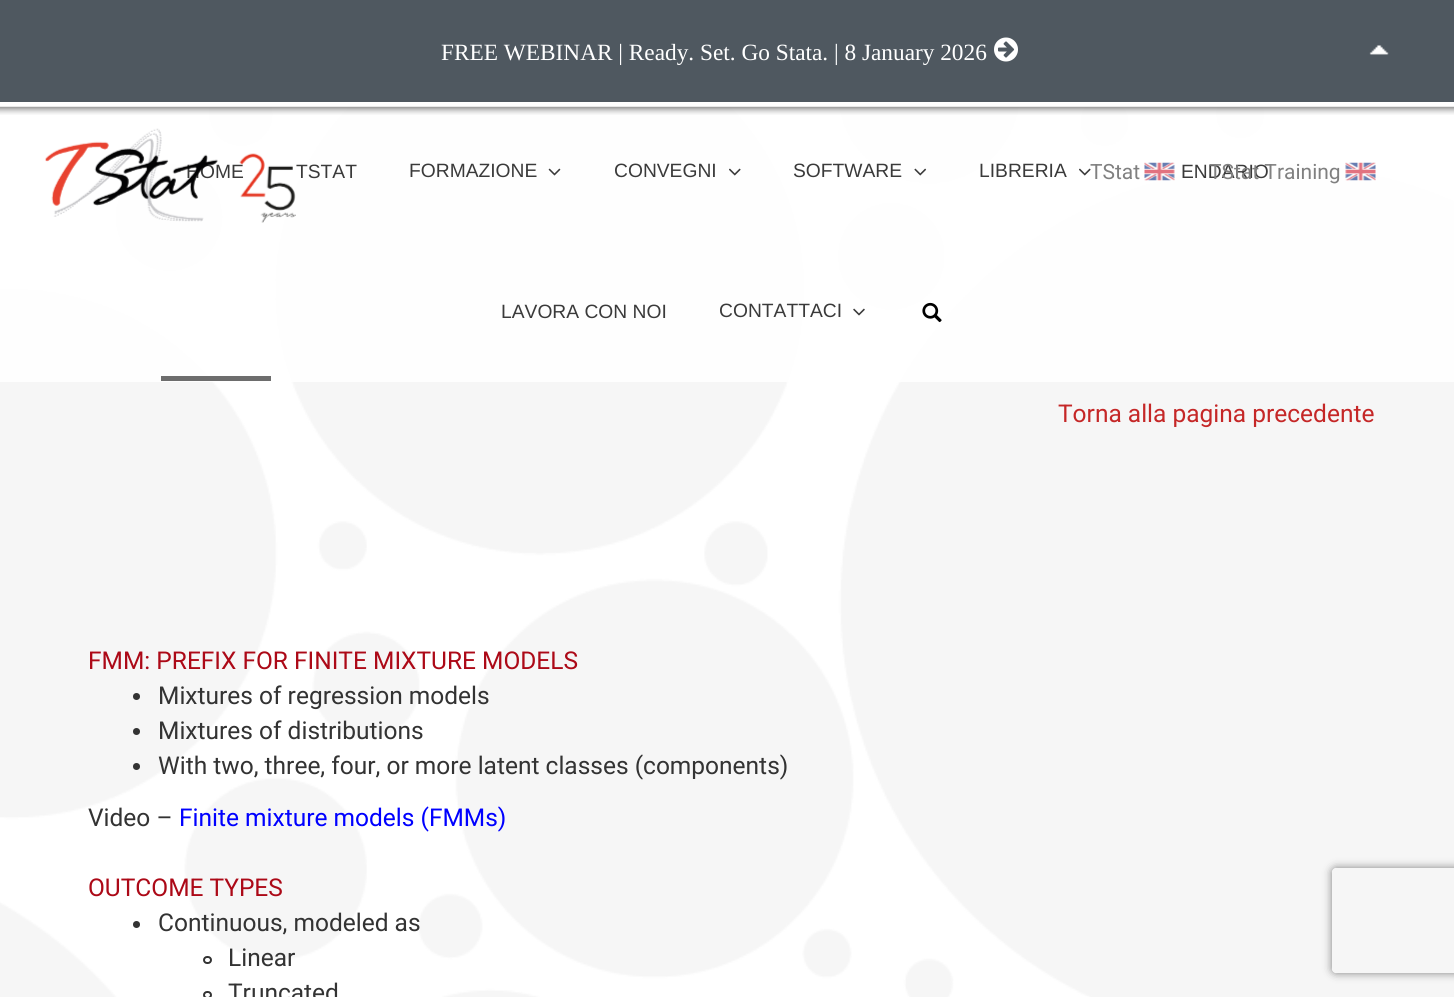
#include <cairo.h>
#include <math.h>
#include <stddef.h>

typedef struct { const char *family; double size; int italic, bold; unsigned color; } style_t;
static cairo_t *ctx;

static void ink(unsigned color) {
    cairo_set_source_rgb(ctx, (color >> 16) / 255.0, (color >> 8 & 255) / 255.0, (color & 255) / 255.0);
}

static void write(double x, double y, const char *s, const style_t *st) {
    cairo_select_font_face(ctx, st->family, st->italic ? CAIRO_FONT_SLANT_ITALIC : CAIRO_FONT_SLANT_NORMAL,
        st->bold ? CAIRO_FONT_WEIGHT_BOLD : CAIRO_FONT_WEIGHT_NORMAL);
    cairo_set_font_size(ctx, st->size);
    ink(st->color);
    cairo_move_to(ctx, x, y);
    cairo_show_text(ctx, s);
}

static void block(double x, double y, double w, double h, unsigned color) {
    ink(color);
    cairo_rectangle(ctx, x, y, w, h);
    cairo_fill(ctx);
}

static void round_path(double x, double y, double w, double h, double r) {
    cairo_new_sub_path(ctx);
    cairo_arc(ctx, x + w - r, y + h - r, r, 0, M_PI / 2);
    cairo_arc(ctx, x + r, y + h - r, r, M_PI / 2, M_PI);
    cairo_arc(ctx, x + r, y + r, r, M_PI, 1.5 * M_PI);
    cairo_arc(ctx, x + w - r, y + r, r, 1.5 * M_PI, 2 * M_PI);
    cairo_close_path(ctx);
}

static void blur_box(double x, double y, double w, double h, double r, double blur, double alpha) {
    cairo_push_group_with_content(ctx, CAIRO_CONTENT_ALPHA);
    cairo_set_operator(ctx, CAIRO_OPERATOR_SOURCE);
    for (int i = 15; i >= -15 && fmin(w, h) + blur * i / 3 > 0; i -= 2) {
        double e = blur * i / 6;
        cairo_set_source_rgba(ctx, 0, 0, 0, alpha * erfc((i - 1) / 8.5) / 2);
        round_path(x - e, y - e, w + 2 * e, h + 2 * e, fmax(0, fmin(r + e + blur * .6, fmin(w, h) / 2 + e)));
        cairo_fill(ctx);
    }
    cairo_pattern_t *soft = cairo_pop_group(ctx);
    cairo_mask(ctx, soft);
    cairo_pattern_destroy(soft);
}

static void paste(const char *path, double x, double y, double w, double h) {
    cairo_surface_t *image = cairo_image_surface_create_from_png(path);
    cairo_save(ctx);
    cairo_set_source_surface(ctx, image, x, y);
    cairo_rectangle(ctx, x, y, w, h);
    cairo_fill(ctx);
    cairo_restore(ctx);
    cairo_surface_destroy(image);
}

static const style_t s1 = {"Liberation Serif", 23.3, 0, 0, 0xffffff};
static const style_t s2 = {"Liberation Sans", 19.25, 0, 0, 0x3a3a3a};
static const style_t s3 = {"Roboto", 21, 0, 0, 0x808080};
static const style_t s4 = {"Roboto", 24.5, 0, 0, 0xc52727};
static const style_t s5 = {"Roboto", 24.5, 0, 0, 0xac0917};
static const style_t s6 = {"Roboto", 24.5, 0, 0, 0x333333};
static const style_t s7 = {"Roboto", 24.5, 0, 0, 0x0000ff};

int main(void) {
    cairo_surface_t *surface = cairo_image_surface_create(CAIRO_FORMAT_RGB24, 1454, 997);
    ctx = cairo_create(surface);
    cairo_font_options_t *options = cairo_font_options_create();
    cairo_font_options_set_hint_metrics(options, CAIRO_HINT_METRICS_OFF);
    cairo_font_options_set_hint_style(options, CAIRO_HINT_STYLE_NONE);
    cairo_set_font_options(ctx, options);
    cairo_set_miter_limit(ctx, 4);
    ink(0xffffff);
    cairo_paint(ctx);
    paste("pic1.png", 0, 107, 1454, 890);
    block(0, 0, 1454, 102, 0x4f5860);
    write(441, 60, "FREE WEBINAR | Ready. Set. Go Stata. | 8 January 2026", &s1);
    paste("pic2.png", 994, 37, 24, 25);
    paste("pic3.png", 1369, 45, 20, 10);
    cairo_set_source_rgba(ctx, 1, 1, 1, 0.85);
    cairo_rectangle(ctx, 0, 107, 1454, 275);
    cairo_fill(ctx);
    paste("pic4.png", 0, 106, 1454, 9);
    write(186, 178, "HOME", &s2);
    paste("pic5.png", 45, 128, 173, 94);
    paste("pic6.png", 239, 153, 57, 70);
    write(296, 178, "TSTAT", &s2);
    write(409, 177, "FORMAZIONE", &s2);
    paste("pic7.png", 548, 168, 13, 8);
    write(614, 177, "CONVEGNI", &s2);
    paste("pic8.png", 729, 168, 12, 8);
    write(793, 177, "SOFTWARE", &s2);
    paste("pic9.png", 914, 168, 13, 8);
    write(979, 177, "LIBRERIA", &s2);
    paste("pic10.png", 1079, 168, 12, 8);
    write(1181, 178, "ENDARIO", &s2);
    write(501, 318, "LAVORA CON NOI", &s2);
    write(719, 317, "CONTATTACI", &s2);
    paste("pic11.png", 853, 308, 12, 8);
    paste("pic12.png", 922, 302, 20, 21);
    block(161, 376, 110, 5, 0x6d6d6d);
    write(1090, 179, "TStat", &s3);
    paste("pic13.png", 1144, 162, 31, 19);
    write(1209, 179, "TStat Training", &s3);
    paste("pic14.png", 1345, 162, 31, 19);
    write(1058, 422, "Torna alla pagina precedente", &s4);
    write(88, 669, "FMM: PREFIX FOR FINITE MIXTURE MODELS", &s5);
    ink(0x333333);
    cairo_new_path(ctx);
    cairo_arc(ctx, 136.5, 696.5, 3.5, 0, 2 * M_PI);
    cairo_fill(ctx);
    write(158, 704, "Mixtures of regression models", &s6);
    cairo_new_path(ctx);
    cairo_arc(ctx, 136.5, 731.5, 3.5, 0, 2 * M_PI);
    cairo_fill(ctx);
    write(158, 739, "Mixtures of distributions", &s6);
    cairo_new_path(ctx);
    cairo_arc(ctx, 136.5, 766.5, 3.5, 0, 2 * M_PI);
    cairo_fill(ctx);
    write(158, 774, "With two, three, four, or more latent classes (components)", &s6);
    write(88, 826, "Video –", &s6);
    write(179, 826, "Finite mixture models (FMMs)", &s7);
    write(88, 896, "OUTCOME TYPES", &s5);
    ink(0x333333);
    cairo_new_path(ctx);
    cairo_arc(ctx, 136.5, 924.5, 3.5, 0, 2 * M_PI);
    cairo_fill(ctx);
    write(158, 931, "Continuous, modeled as", &s6);
    round_path(204, 957, 7, 6, 3);
    cairo_stroke(ctx);
    write(228, 966, "Linear", &s6);
    round_path(204, 992, 7, 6, 3);
    cairo_stroke(ctx);
    write(228, 1001, "Truncated", &s6);
    cairo_save(ctx);
    cairo_set_fill_rule(ctx, CAIRO_FILL_RULE_EVEN_ODD);
    cairo_new_path(ctx);
    cairo_move_to(ctx, 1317, 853);
    cairo_line_to(ctx, 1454, 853);
    cairo_line_to(ctx, 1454, 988);
    cairo_line_to(ctx, 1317, 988);
    cairo_close_path(ctx);
    cairo_move_to(ctx, 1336, 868);
    cairo_line_to(ctx, 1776, 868);
    cairo_curve_to(ctx, 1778, 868, 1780, 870, 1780, 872);
    cairo_line_to(ctx, 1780, 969);
    cairo_curve_to(ctx, 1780, 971, 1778, 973, 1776, 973);
    cairo_line_to(ctx, 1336, 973);
    cairo_curve_to(ctx, 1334, 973, 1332, 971, 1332, 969);
    cairo_line_to(ctx, 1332, 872);
    cairo_curve_to(ctx, 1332, 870, 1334, 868, 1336, 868);
    cairo_close_path(ctx);
    cairo_clip(ctx);
    ink(0x808080);
    blur_box(1332, 868, 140, 105, 4, 4.5, 1);
    cairo_restore(ctx);
    cairo_surface_write_to_png(surface, "screenshot.png");
    cairo_font_options_destroy(options);
    cairo_destroy(ctx);
    cairo_surface_destroy(surface);
    return 0;
}
